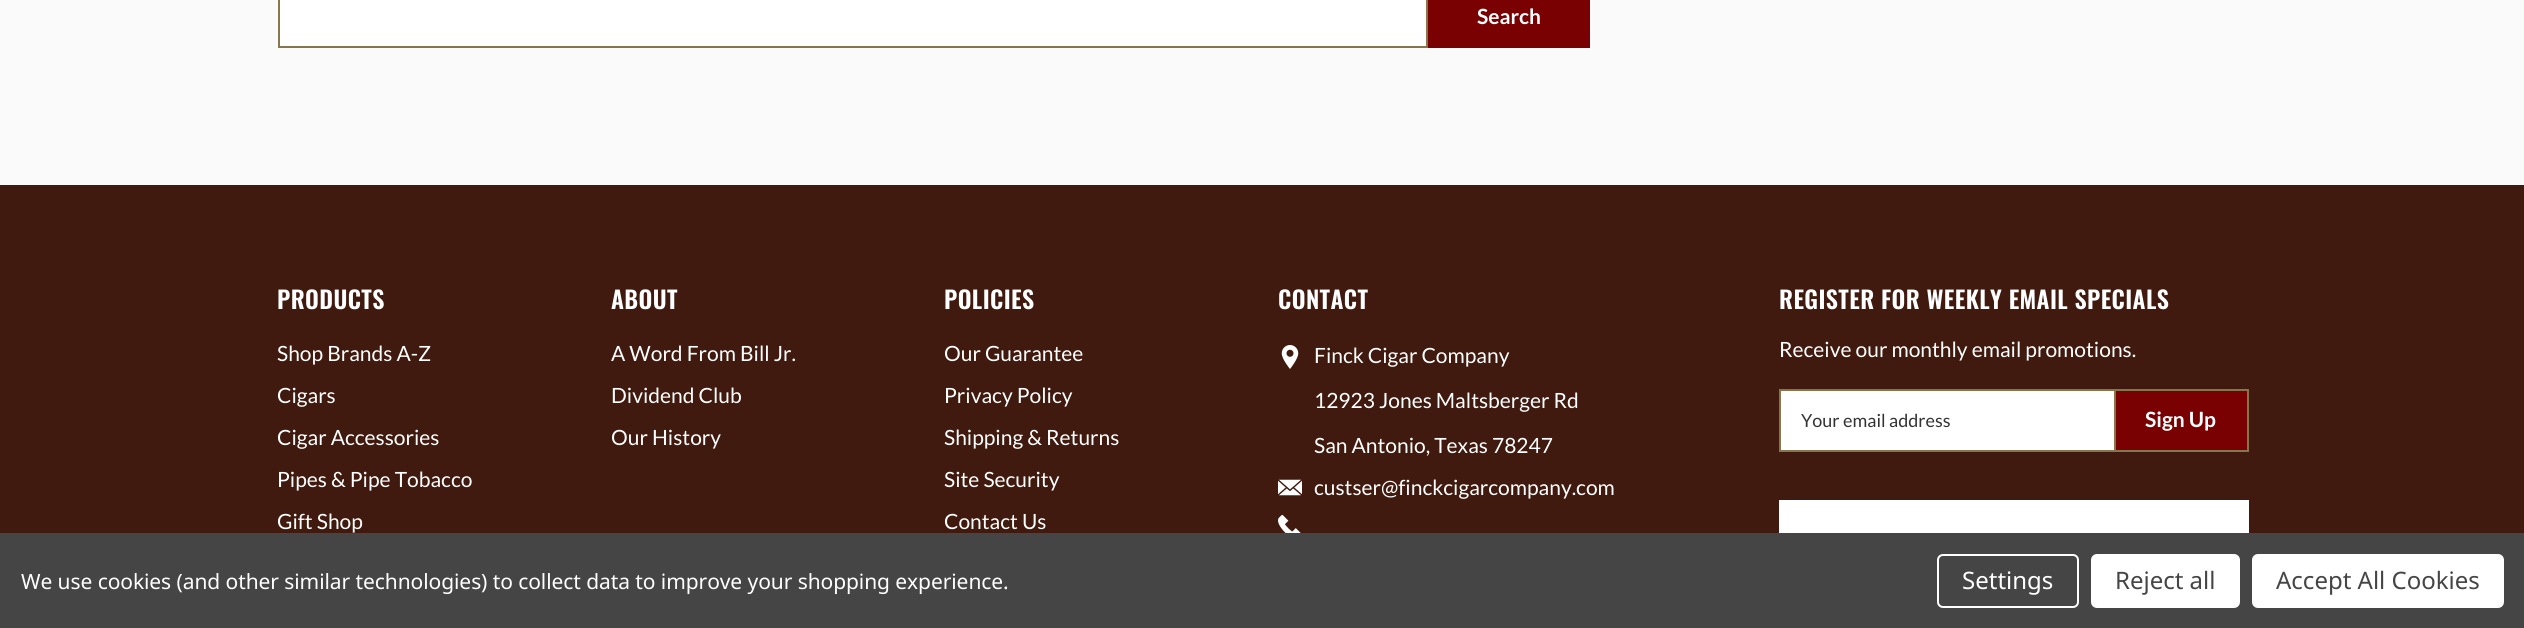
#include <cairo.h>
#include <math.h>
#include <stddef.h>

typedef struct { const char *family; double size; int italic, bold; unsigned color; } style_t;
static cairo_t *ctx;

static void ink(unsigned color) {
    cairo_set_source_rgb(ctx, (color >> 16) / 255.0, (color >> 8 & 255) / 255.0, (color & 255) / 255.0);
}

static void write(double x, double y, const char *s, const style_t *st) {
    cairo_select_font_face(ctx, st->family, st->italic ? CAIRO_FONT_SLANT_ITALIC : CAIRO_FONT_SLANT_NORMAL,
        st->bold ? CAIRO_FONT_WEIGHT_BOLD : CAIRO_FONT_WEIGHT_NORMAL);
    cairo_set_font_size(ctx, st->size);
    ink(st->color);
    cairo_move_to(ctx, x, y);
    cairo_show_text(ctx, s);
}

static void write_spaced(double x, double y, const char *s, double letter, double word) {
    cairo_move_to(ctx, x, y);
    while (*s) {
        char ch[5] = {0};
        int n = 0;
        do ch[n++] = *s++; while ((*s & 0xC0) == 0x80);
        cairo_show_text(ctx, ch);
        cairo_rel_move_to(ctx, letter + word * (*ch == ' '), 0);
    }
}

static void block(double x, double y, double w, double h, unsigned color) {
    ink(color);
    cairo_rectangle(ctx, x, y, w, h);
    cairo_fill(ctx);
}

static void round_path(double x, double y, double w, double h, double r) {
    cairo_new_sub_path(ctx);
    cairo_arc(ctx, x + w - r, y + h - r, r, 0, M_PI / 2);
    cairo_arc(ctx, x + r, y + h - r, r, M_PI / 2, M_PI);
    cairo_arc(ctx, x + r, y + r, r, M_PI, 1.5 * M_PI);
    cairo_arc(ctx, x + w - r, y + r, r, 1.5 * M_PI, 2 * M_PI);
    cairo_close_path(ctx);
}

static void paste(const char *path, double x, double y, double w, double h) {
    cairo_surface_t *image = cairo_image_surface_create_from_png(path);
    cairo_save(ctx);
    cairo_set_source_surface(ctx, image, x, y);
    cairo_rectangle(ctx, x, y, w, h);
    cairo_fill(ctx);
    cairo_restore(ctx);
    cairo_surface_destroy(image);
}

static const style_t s1 = {"Lato", 21, 0, 1, 0xffffff};
static const style_t s2 = {"Lato", 21, 0, 0, 0xffffff};
static const style_t s3 = {"Lato", 18, 0, 0, 0x333333};
static const style_t s4 = {"Noto Sans", 24, 0, 0, 0xffffff};
static const style_t s5 = {"Noto Sans", 24, 0, 0, 0x454545};

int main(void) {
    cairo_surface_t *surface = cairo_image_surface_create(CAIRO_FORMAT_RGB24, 2524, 628);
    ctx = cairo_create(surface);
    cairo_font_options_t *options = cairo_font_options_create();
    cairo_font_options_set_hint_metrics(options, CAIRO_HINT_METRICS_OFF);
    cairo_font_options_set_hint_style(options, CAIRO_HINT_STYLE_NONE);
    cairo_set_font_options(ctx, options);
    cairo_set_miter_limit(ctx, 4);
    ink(0xfafafa);
    cairo_paint(ctx);
    ink(0xffffff);
    cairo_rectangle(ctx, 279, -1, 1148, 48);
    cairo_fill_preserve(ctx);
    ink(0x86764d);
    cairo_stroke(ctx);
    block(1428, 0, 162, 48, 0x7a0101);
    write(1477, 24, "Search", &s1);
    block(0, 185, 2524, 348, 0x401a0e);
    cairo_select_font_face(ctx, "Oswald SemiBold", CAIRO_FONT_SLANT_NORMAL, CAIRO_FONT_WEIGHT_NORMAL);
    cairo_set_font_size(ctx, 24);
    ink(0xffffff);
    write_spaced(277, 309, "PRODUCTS", 0.4, 0);
    write(277, 361, "Shop Brands A-Z", &s2);
    write(277, 403, "Cigars", &s2);
    write(277, 445, "Cigar Accessories", &s2);
    write(277, 487, "Pipes & Pipe Tobacco", &s2);
    write(277, 529, "Gift Shop", &s2);
    cairo_select_font_face(ctx, "Oswald SemiBold", CAIRO_FONT_SLANT_NORMAL, CAIRO_FONT_WEIGHT_NORMAL);
    cairo_set_font_size(ctx, 24);
    write_spaced(611, 309, "ABOUT", 0.4, 0);
    write(611, 361, "A Word From Bill Jr.", &s2);
    write(611, 403, "Dividend Club", &s2);
    write(611, 445, "Our History", &s2);
    cairo_select_font_face(ctx, "Oswald SemiBold", CAIRO_FONT_SLANT_NORMAL, CAIRO_FONT_WEIGHT_NORMAL);
    cairo_set_font_size(ctx, 24);
    write_spaced(944, 309, "POLICIES", 0.4, 0);
    write(944, 361, "Our Guarantee", &s2);
    write(944, 403, "Privacy Policy", &s2);
    write(944, 445, "Shipping & Returns", &s2);
    write(944, 487, "Site Security", &s2);
    write(944, 529, "Contact Us", &s2);
    cairo_select_font_face(ctx, "Oswald SemiBold", CAIRO_FONT_SLANT_NORMAL, CAIRO_FONT_WEIGHT_NORMAL);
    cairo_set_font_size(ctx, 24);
    write_spaced(1278, 309, "CONTACT", 0.4, 0);
    paste("pic1.png", 1281, 345, 18, 24);
    write(1314, 363, "Finck Cigar Company", &s2);
    write(1314, 408, "12923 Jones Maltsberger Rd", &s2);
    write(1314, 453, "San Antonio, Texas 78247", &s2);
    paste("pic2.png", 1278, 479, 24, 17);
    write(1314, 495, "custser@finckcigarcompany.com", &s2);
    paste("pic3.png", 1278, 515, 23, 18);
    cairo_select_font_face(ctx, "Oswald SemiBold", CAIRO_FONT_SLANT_NORMAL, CAIRO_FONT_WEIGHT_NORMAL);
    cairo_set_font_size(ctx, 24);
    write_spaced(1779, 309, "REGISTER FOR WEEKLY EMAIL SPECIALS", 0.4, 0);
    write(1779, 357, "Receive our monthly email promotions.", &s2);
    block(1781, 391, 333, 59, 0xffffff);
    block(1779, 389, 335, 2, 0x86764d);
    block(1779, 450, 335, 2, 0x86764d);
    block(1779, 389, 2, 63, 0x86764d);
    write(1801, 427, "Your email address", &s3);
    ink(0x7a0101);
    cairo_rectangle(ctx, 2115, 390, 133, 61);
    cairo_fill_preserve(ctx);
    ink(0x86764d);
    cairo_stroke(ctx);
    write(2145, 427, "Sign Up", &s1);
    block(1779, 500, 470, 33, 0xffffff);
    block(0, 533, 2524, 95, 0x454545);
    cairo_select_font_face(ctx, "Noto Sans", CAIRO_FONT_SLANT_NORMAL, CAIRO_FONT_WEIGHT_NORMAL);
    ink(0xffffff);
    write_spaced(21, 589, "We use cookies (and other similar technologies) to collect data to improve your shopping experience.", -0.08, 0);
    round_path(1938, 555, 140, 52, 5);
    cairo_stroke(ctx);
    write(1962, 589, "Settings", &s4);
    round_path(2091, 554, 149, 54, 6);
    cairo_fill(ctx);
    write(2115, 589, "Reject all", &s5);
    ink(0xffffff);
    round_path(2252, 554, 252, 54, 6);
    cairo_fill(ctx);
    write(2276, 589, "Accept All Cookies", &s5);
    cairo_surface_write_to_png(surface, "screenshot.png");
    cairo_font_options_destroy(options);
    cairo_destroy(ctx);
    cairo_surface_destroy(surface);
    return 0;
}
